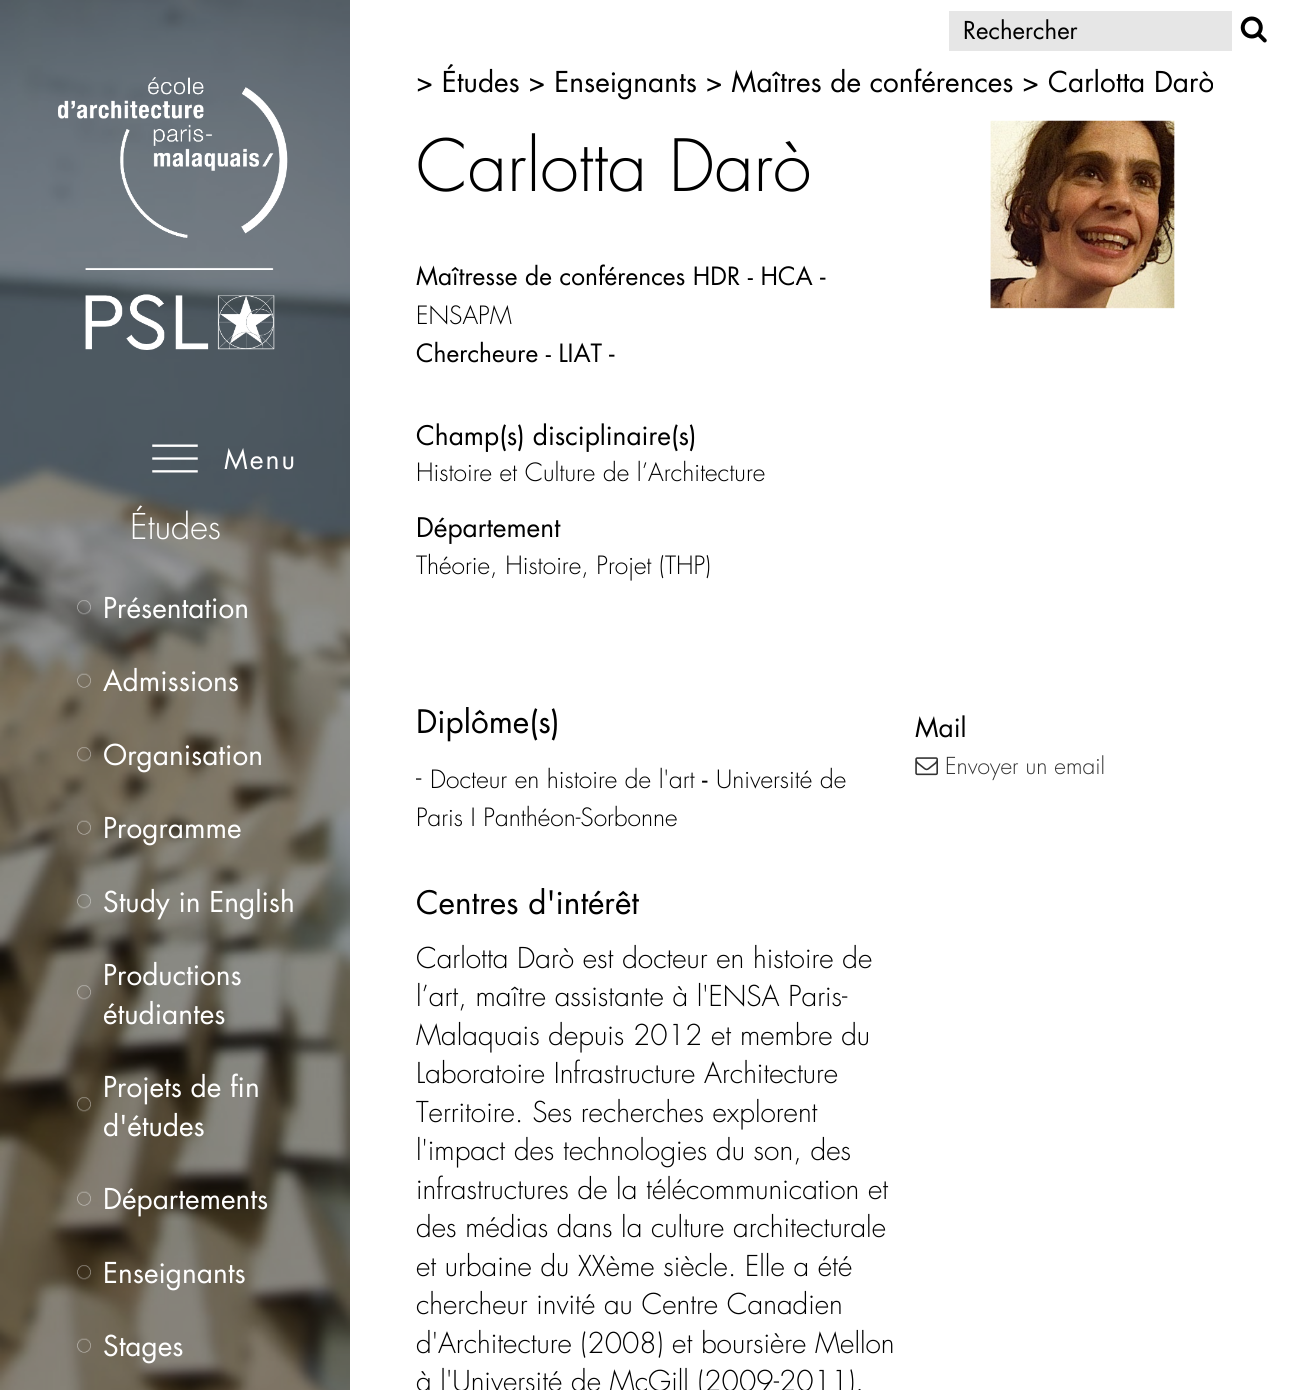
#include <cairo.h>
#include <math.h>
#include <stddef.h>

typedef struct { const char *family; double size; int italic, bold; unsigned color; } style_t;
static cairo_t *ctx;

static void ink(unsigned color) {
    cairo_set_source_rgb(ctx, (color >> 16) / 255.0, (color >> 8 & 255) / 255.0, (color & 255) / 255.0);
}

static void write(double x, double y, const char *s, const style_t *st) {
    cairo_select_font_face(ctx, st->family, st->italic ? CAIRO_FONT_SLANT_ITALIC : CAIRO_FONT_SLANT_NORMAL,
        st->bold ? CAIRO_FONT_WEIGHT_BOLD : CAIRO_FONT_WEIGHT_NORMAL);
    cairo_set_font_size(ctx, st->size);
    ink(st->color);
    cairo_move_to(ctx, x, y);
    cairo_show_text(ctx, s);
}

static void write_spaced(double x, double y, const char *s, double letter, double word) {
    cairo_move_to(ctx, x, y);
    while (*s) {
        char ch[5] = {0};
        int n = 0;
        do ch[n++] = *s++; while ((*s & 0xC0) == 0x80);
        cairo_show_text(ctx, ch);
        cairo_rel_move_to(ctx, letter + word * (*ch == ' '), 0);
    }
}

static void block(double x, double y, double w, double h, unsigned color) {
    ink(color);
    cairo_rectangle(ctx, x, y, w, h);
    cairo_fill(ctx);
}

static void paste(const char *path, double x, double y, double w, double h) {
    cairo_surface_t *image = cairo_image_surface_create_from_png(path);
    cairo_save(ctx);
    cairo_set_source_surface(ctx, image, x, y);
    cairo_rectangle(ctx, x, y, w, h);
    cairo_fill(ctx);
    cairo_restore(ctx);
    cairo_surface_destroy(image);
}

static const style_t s1 = {"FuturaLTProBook", 24, 0, 0, 0x000000};
static const style_t s2 = {"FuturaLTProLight", 34.5, 0, 0, 0xffffff};
static const style_t s3 = {"FuturaLTProBook", 28, 0, 0, 0xffffff};
static const style_t s4 = {"FuturaLTProBook", 28, 0, 0, 0x000000};
static const style_t s5 = {"FuturaLTProLight", 70, 0, 0, 0x000000};
static const style_t s6 = {"FuturaLTProBook", 24.5, 0, 0, 0x000000};
static const style_t s7 = {"FuturaLTProBook", 26.25, 0, 0, 0x000000};
static const style_t s8 = {"FuturaLTProLight", 24.5, 0, 0, 0x000000};
static const style_t s9 = {"FuturaLTProBook", 31.5, 0, 0, 0x000000};
static const style_t s10 = {"FuturaLTProLight", 28, 0, 0, 0x000000};
static const style_t s11 = {"FuturaLTProLight", 22.75, 0, 0, 0x333333};

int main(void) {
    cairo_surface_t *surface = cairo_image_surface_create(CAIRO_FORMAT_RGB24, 1313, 1390);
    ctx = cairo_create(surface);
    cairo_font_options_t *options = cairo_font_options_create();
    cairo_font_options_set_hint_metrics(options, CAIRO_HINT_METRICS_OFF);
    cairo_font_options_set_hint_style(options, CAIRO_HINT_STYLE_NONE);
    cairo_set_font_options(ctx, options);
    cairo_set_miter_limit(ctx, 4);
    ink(0xffffff);
    cairo_paint(ctx);
    block(949, 11, 283, 40, 0xe6e6e6);
    write(963, 39, "Rechercher", &s1);
    paste("pic1.png", 1240, 16, 27, 27);
    paste("pic2.png", 0, 0, 350, 1390);
    paste("pic3.png", 58, 77, 230, 273);
    paste("pic4.png", 152, 444, 46, 29);
    cairo_set_font_size(ctx, 26.5);
    ink(0xffffff);
    write_spaced(224, 469, "Menu", 2, 0);
    write(130, 539, "Études", &s2);
    paste("pic5.png", 77, 600, 14, 15);
    write(103, 618, "Présentation", &s3);
    paste("pic6.png", 77, 673, 14, 15);
    write(103, 691, "Admissions", &s3);
    paste("pic7.png", 77, 747, 14, 15);
    write(103, 765, "Organisation", &s3);
    paste("pic8.png", 77, 820, 14, 15);
    write(103, 838, "Programme", &s3);
    paste("pic9.png", 77, 894, 14, 15);
    write(103, 912, "Study in English", &s3);
    paste("pic10.png", 77, 985, 14, 15);
    write(103, 985, "Productions", &s3);
    write(103, 1024, "étudiantes", &s3);
    paste("pic11.png", 77, 1097, 14, 15);
    write(103, 1097, "Projets de fin", &s3);
    write(103, 1136, "d'études", &s3);
    paste("pic12.png", 77, 1191, 14, 15);
    write(103, 1209, "Départements", &s3);
    paste("pic13.png", 77, 1265, 14, 15);
    write(103, 1283, "Enseignants", &s3);
    paste("pic14.png", 77, 1338, 14, 15);
    write(103, 1356, "Stages", &s3);
    write(416, 92, "> Études > Enseignants > Maîtres de conférences > Carlotta Darò", &s4);
    write(416, 191, "Carlotta Darò", &s5);
    write(416, 285, "Maîtresse de conférences HDR - HCA", &s6);
    write(820, 285, "-", &s7);
    write(416, 324, "ENSAPM", &s8);
    write(416, 362, "Chercheure - LIAT", &s6);
    write(609, 362, "-", &s7);
    write(416, 445, "Champ(s) disciplinaire(s)", &s7);
    write(416, 481, "Histoire et Culture de l’Architecture", &s8);
    write(416, 537, "Département", &s7);
    write(416, 574, "Théorie, Histoire, Projet (THP)", &s8);
    paste("pic15.png", 990, 120, 185, 189);
    write(416, 733, "Diplôme(s)", &s9);
    write(416, 788, "-", &s10);
    write(430, 788, "Docteur en histoire de l'art", &s8);
    write(716, 788, "Université de", &s8);
    write(702, 788, "-", &s7);
    write(416, 826, "Paris I Panthéon-Sorbonne", &s8);
    write(416, 914, "Centres d'intérêt", &s9);
    write(416, 968, "Carlotta Darò est docteur en histoire de", &s10);
    write(416, 1006, "l’art, maître assistante à l'ENSA Paris-", &s10);
    write(416, 1045, "Malaquais depuis 2012 et membre du", &s10);
    write(416, 1083, "Laboratoire Infrastructure Architecture", &s10);
    write(416, 1122, "Territoire. Ses recherches explorent", &s10);
    write(416, 1160, "l'impact des technologies du son, des", &s10);
    write(416, 1199, "infrastructures de la télécommunication et", &s10);
    write(416, 1237, "des médias dans la culture architecturale", &s10);
    write(416, 1276, "et urbaine du XXème siècle. Elle a été", &s10);
    write(416, 1314, "chercheur invité au Centre Canadien", &s10);
    write(416, 1353, "d'Architecture (2008) et boursière Mellon", &s10);
    write(416, 1391, "à l'Université de McGill (2009-2011).", &s10);
    write(915, 737, "Mail", &s7);
    paste("pic16.png", 915, 757, 23, 19);
    write(945, 774, "Envoyer un email", &s11);
    cairo_surface_write_to_png(surface, "screenshot.png");
    cairo_font_options_destroy(options);
    cairo_destroy(ctx);
    cairo_surface_destroy(surface);
    return 0;
}
